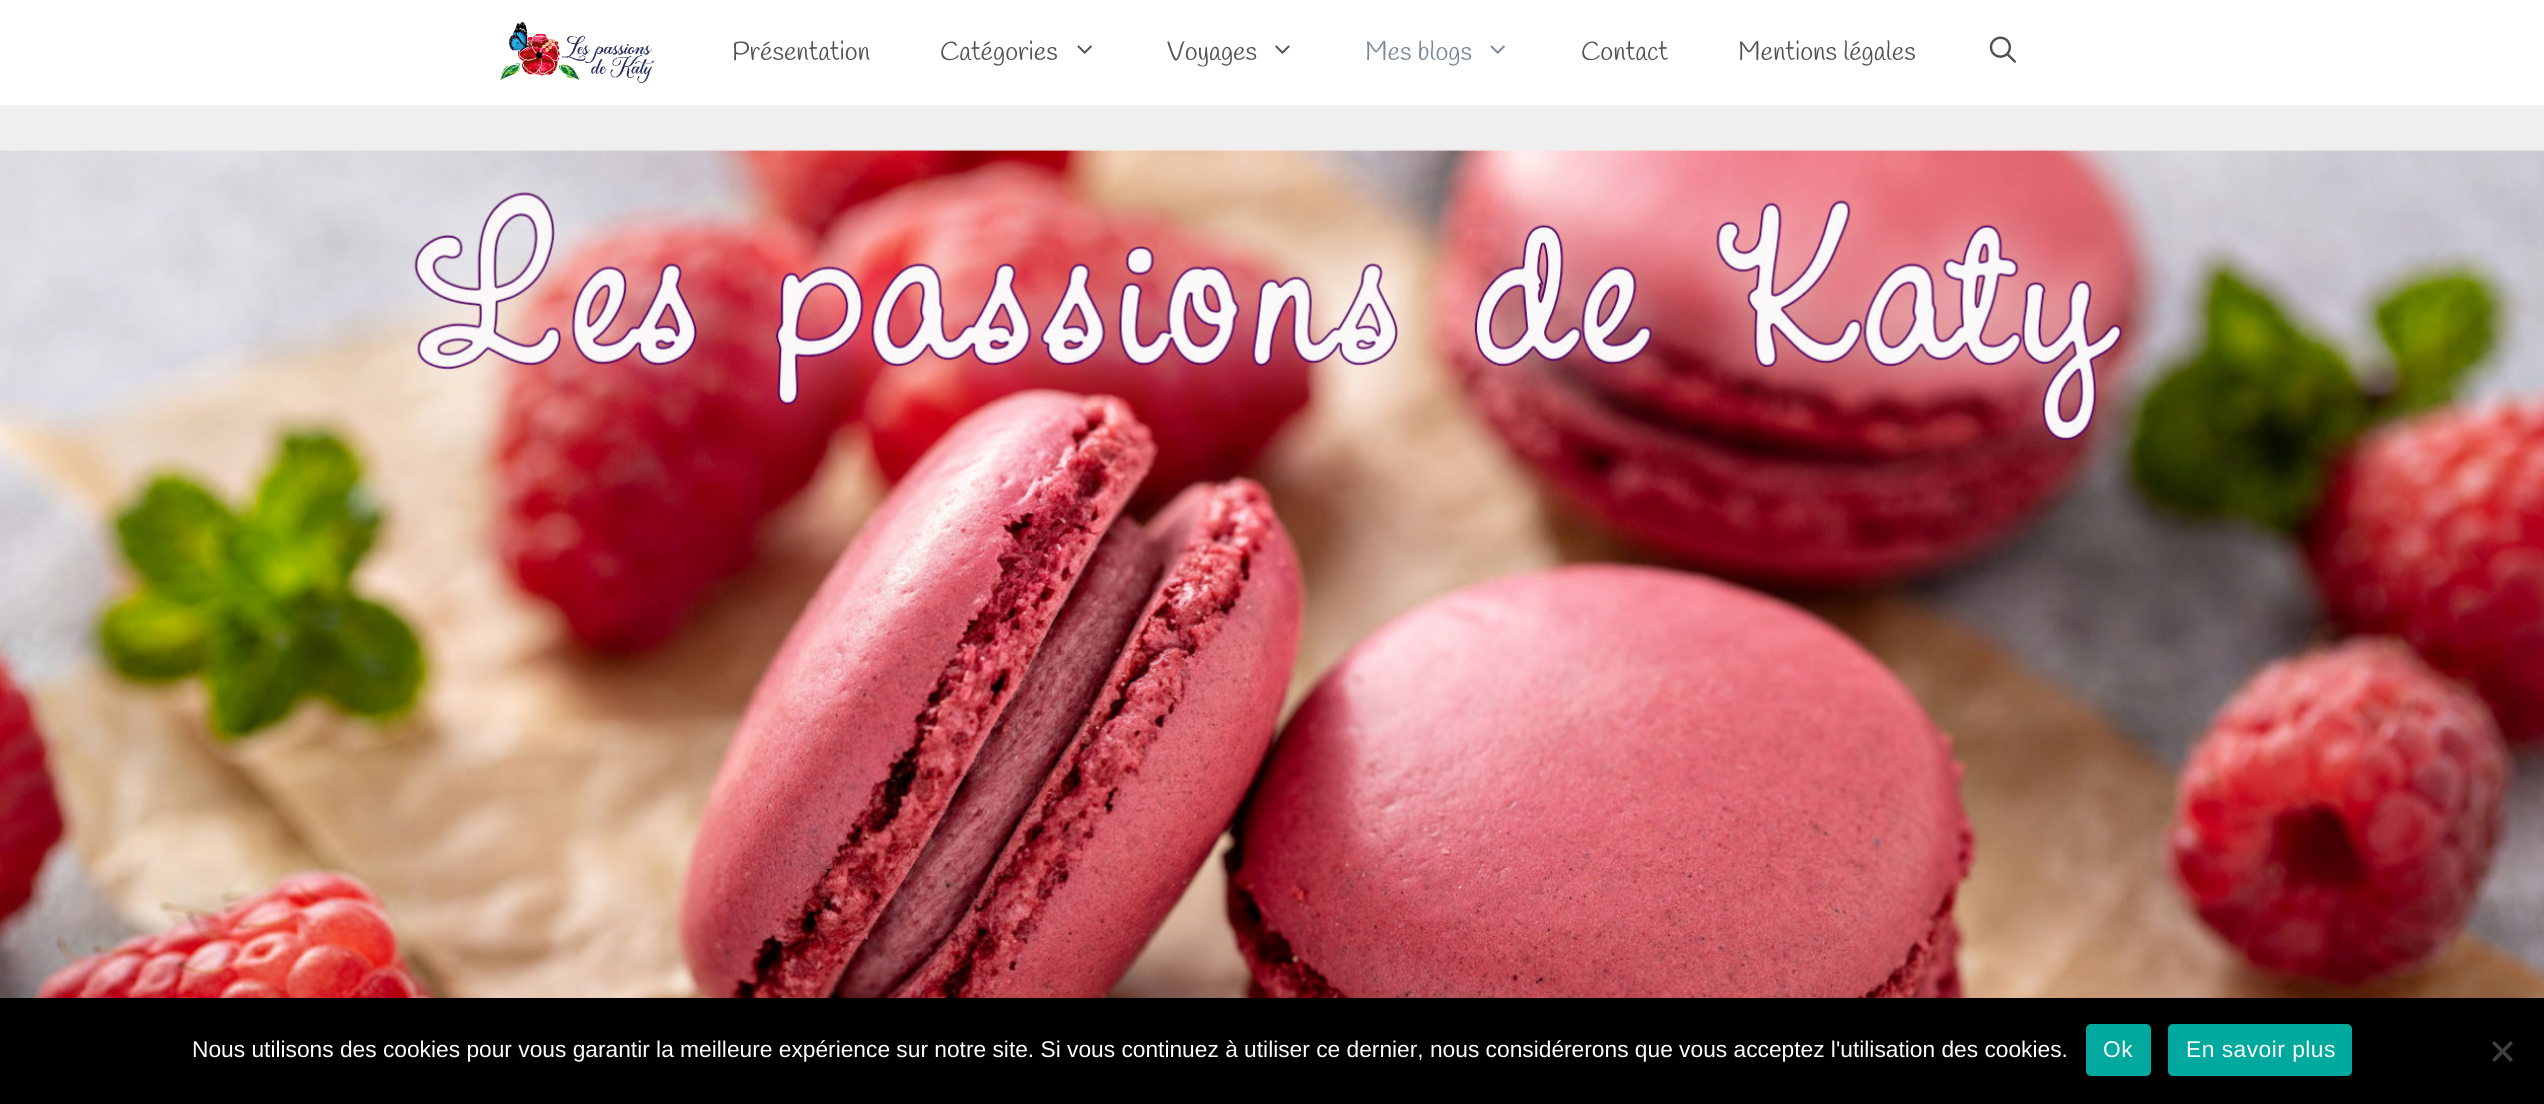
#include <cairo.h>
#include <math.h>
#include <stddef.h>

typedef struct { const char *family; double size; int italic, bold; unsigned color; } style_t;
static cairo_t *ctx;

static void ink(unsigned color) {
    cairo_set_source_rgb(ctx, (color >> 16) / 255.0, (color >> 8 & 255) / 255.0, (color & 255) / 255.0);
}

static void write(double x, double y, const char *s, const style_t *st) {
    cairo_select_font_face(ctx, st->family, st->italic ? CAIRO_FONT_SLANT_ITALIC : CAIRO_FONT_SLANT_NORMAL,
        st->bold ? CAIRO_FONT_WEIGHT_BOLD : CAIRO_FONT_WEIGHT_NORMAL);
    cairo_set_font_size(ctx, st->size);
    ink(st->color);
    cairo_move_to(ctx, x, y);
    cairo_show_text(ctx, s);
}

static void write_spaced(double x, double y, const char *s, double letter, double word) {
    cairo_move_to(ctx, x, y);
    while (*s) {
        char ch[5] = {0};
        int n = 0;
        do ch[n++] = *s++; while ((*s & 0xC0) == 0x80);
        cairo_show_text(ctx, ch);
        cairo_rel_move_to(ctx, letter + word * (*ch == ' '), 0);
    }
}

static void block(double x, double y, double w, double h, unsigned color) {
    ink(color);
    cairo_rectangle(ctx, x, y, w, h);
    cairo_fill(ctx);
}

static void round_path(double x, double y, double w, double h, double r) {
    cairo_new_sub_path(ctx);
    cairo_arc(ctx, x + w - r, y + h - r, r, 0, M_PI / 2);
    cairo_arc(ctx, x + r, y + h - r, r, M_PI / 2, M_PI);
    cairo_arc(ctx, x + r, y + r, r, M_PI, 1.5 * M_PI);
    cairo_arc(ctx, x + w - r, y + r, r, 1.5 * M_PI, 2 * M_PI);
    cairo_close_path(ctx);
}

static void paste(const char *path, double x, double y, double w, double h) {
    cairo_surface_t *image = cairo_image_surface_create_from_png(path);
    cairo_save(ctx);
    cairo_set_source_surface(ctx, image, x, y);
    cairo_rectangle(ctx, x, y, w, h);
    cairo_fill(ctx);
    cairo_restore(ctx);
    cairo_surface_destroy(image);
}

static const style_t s1 = {"Handlee", 26.25, 0, 0, 0x515151};
static const style_t s2 = {"Handlee", 26.25, 0, 0, 0x7a8896};
static const style_t s3 = {"Liberation Sans", 22.75, 0, 0, 0xffffff};

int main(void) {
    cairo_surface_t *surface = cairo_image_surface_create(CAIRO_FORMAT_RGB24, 2544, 1104);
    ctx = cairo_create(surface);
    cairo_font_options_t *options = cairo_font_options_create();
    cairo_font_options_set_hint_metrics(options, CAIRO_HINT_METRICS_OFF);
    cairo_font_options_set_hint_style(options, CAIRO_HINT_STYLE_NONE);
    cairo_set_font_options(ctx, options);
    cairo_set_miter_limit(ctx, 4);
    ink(0xefefef);
    cairo_paint(ctx);
    block(0, 0, 2544, 105, 0xffffff);
    paste("pic1.png", 500, 21, 154, 63);
    write(732, 60, "Présentation", &s1);
    write(940, 60, "Catégories", &s1);
    paste("pic2.png", 1077, 45, 15, 9);
    write(1167, 60, "Voyages", &s1);
    paste("pic3.png", 1275, 45, 15, 9);
    write(1365, 60, "Mes blogs", &s2);
    paste("pic4.png", 1490, 45, 15, 9);
    write(1581, 60, "Contact", &s1);
    write(1738, 60, "Mentions légales", &s1);
    paste("pic5.png", 1989, 36, 27, 27);
    paste("pic6.png", 0, 149, 2544, 849);
    block(0, 998, 2544, 106, 0x000000);
    write(192, 1057, "Nous utilisons des cookies pour vous garantir la meilleure expérience sur notre site. Si vous continuez à utiliser ce dernier, nous considérerons que vous acceptez l'utilisation des cookies.", &s3);
    ink(0x00a99d);
    round_path(2086, 1024, 65, 52, 5);
    cairo_fill(ctx);
    ink(0xffffff);
    write_spaced(2103, 1057, "Ok", 0.5, 0);
    ink(0x00a99d);
    round_path(2168, 1024, 184, 52, 5);
    cairo_fill(ctx);
    ink(0xffffff);
    write_spaced(2186, 1057, "En savoir plus", 0.5, 0);
    ink(0x404040);
    cairo_new_path(ctx);
    cairo_move_to(ctx, 2510.5, 1041);
    cairo_line_to(ctx, 2513, 1043.5);
    cairo_line_to(ctx, 2494.5, 1062);
    cairo_line_to(ctx, 2492, 1059.5);
    cairo_close_path(ctx);
    cairo_fill(ctx);
    cairo_new_path(ctx);
    cairo_move_to(ctx, 2492, 1043.5);
    cairo_line_to(ctx, 2494.5, 1041);
    cairo_line_to(ctx, 2513, 1059.5);
    cairo_line_to(ctx, 2510.5, 1062);
    cairo_close_path(ctx);
    cairo_fill(ctx);
    cairo_surface_write_to_png(surface, "screenshot.png");
    cairo_font_options_destroy(options);
    cairo_destroy(ctx);
    cairo_surface_destroy(surface);
    return 0;
}
